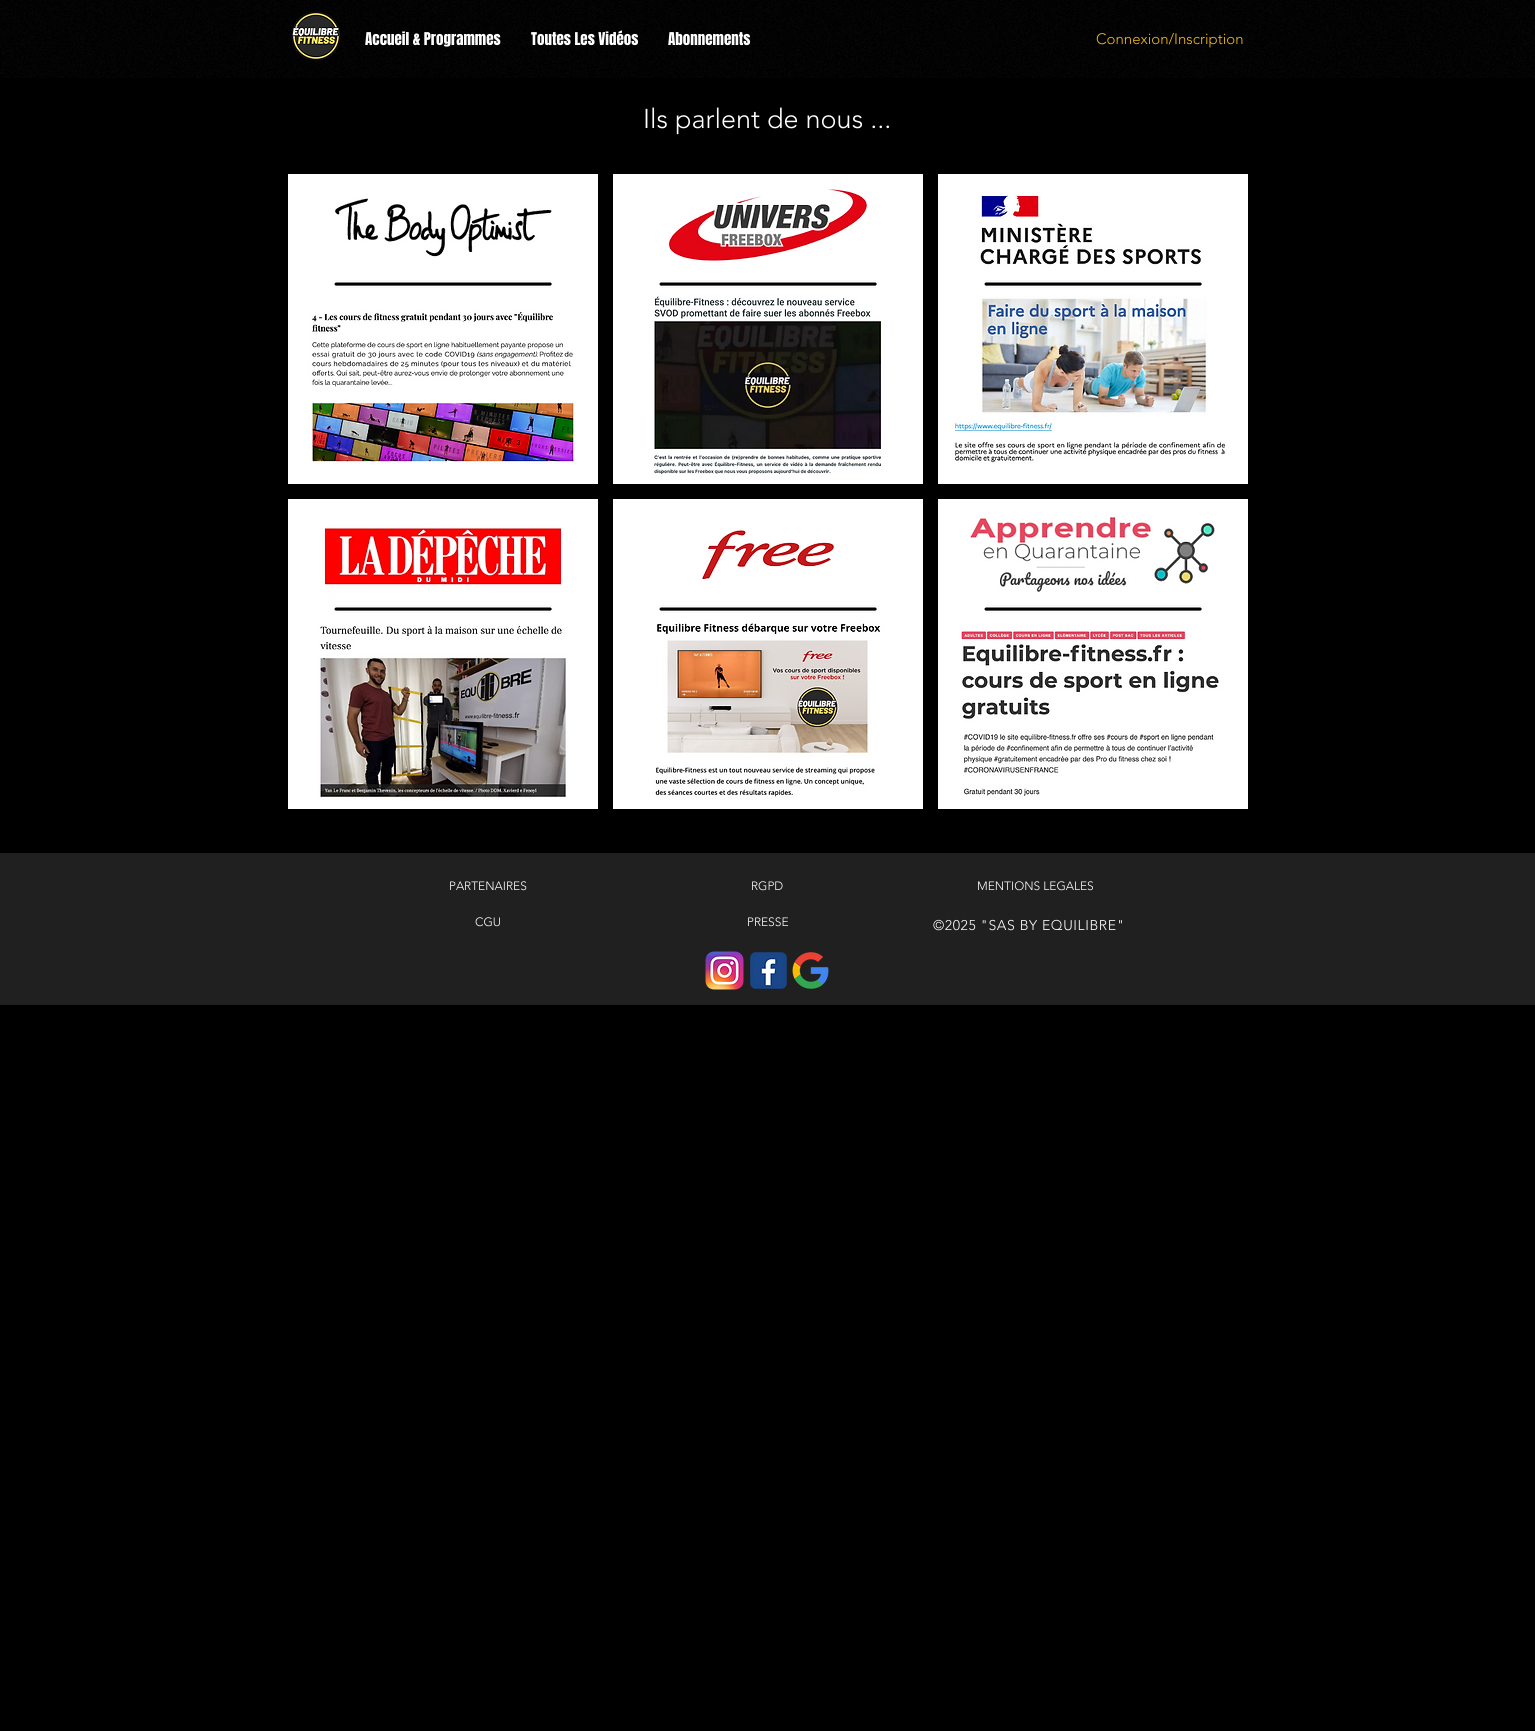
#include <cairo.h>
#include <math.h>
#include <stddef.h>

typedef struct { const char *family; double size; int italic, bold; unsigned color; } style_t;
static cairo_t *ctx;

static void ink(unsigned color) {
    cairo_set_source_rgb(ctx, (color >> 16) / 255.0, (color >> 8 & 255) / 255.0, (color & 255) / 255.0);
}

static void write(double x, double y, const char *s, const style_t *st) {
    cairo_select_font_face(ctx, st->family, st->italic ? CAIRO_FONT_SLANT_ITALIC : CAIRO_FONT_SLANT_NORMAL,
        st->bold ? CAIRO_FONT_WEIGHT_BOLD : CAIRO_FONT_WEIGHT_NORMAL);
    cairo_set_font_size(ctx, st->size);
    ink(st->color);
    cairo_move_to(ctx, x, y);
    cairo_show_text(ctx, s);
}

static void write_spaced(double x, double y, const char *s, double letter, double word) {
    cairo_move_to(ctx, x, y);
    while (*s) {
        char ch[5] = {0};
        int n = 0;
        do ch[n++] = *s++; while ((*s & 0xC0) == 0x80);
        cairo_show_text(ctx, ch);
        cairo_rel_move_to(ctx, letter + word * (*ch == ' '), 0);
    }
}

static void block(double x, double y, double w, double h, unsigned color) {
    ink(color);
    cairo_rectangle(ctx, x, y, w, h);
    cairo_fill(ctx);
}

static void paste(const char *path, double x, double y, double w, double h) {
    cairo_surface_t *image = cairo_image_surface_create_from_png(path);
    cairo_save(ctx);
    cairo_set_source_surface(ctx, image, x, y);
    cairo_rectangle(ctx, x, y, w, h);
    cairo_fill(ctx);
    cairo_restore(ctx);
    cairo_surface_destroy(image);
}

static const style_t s1 = {"Anton", 15, 0, 0, 0xffffff};
static const style_t s2 = {"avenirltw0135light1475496 Light", 15, 0, 0, 0xf2ba11};
static const style_t s3 = {"avenirltw0135light1475496 Light", 27, 0, 0, 0xffffff};
static const style_t s4 = {"avenirltw0135light1475496 Light", 12, 0, 0, 0xffffff};

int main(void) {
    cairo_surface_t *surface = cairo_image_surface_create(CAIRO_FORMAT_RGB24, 1535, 1731);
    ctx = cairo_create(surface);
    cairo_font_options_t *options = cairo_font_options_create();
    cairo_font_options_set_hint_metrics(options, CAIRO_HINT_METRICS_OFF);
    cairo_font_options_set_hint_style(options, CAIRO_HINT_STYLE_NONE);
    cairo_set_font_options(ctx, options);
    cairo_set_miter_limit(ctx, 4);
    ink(0x000000);
    cairo_paint(ctx);
    paste("pic1.png", 0, 0, 1535, 78);
    paste("pic2.png", 291, 11, 50, 50);
    write(365, 45, "Accueil & Programmes", &s1);
    write(531, 45, "Toutes Les Vidéos", &s1);
    write(668, 45, "Abonnements", &s1);
    write(1096, 44, "Connexion/Inscription", &s2);
    write(643, 128, "Ils parlent de nous ...", &s3);
    paste("pic3.png", 288, 174, 310, 310);
    paste("pic4.png", 613, 174, 310, 310);
    paste("pic5.png", 938, 174, 310, 310);
    paste("pic6.png", 288, 499, 310, 310);
    paste("pic7.png", 613, 499, 310, 310);
    paste("pic8.png", 938, 499, 310, 310);
    block(0, 853, 1535, 152, 0x202020);
    write(449, 890, "PARTENAIRES", &s4);
    write(751, 890, "RGPD", &s4);
    write(977, 890, "MENTIONS LEGALES", &s4);
    write(475, 926, "CGU", &s4);
    write(747, 926, "PRESSE", &s4);
    cairo_set_font_size(ctx, 14);
    write_spaced(933, 930, "©2025 \"SAS BY EQUILIBRE\"", 0.6, 0);
    paste("pic9.png", 705, 951, 39, 39);
    paste("pic10.png", 750, 952, 37, 37);
    paste("pic11.png", 792, 952, 37, 37);
    cairo_surface_write_to_png(surface, "screenshot.png");
    cairo_font_options_destroy(options);
    cairo_destroy(ctx);
    cairo_surface_destroy(surface);
    return 0;
}
